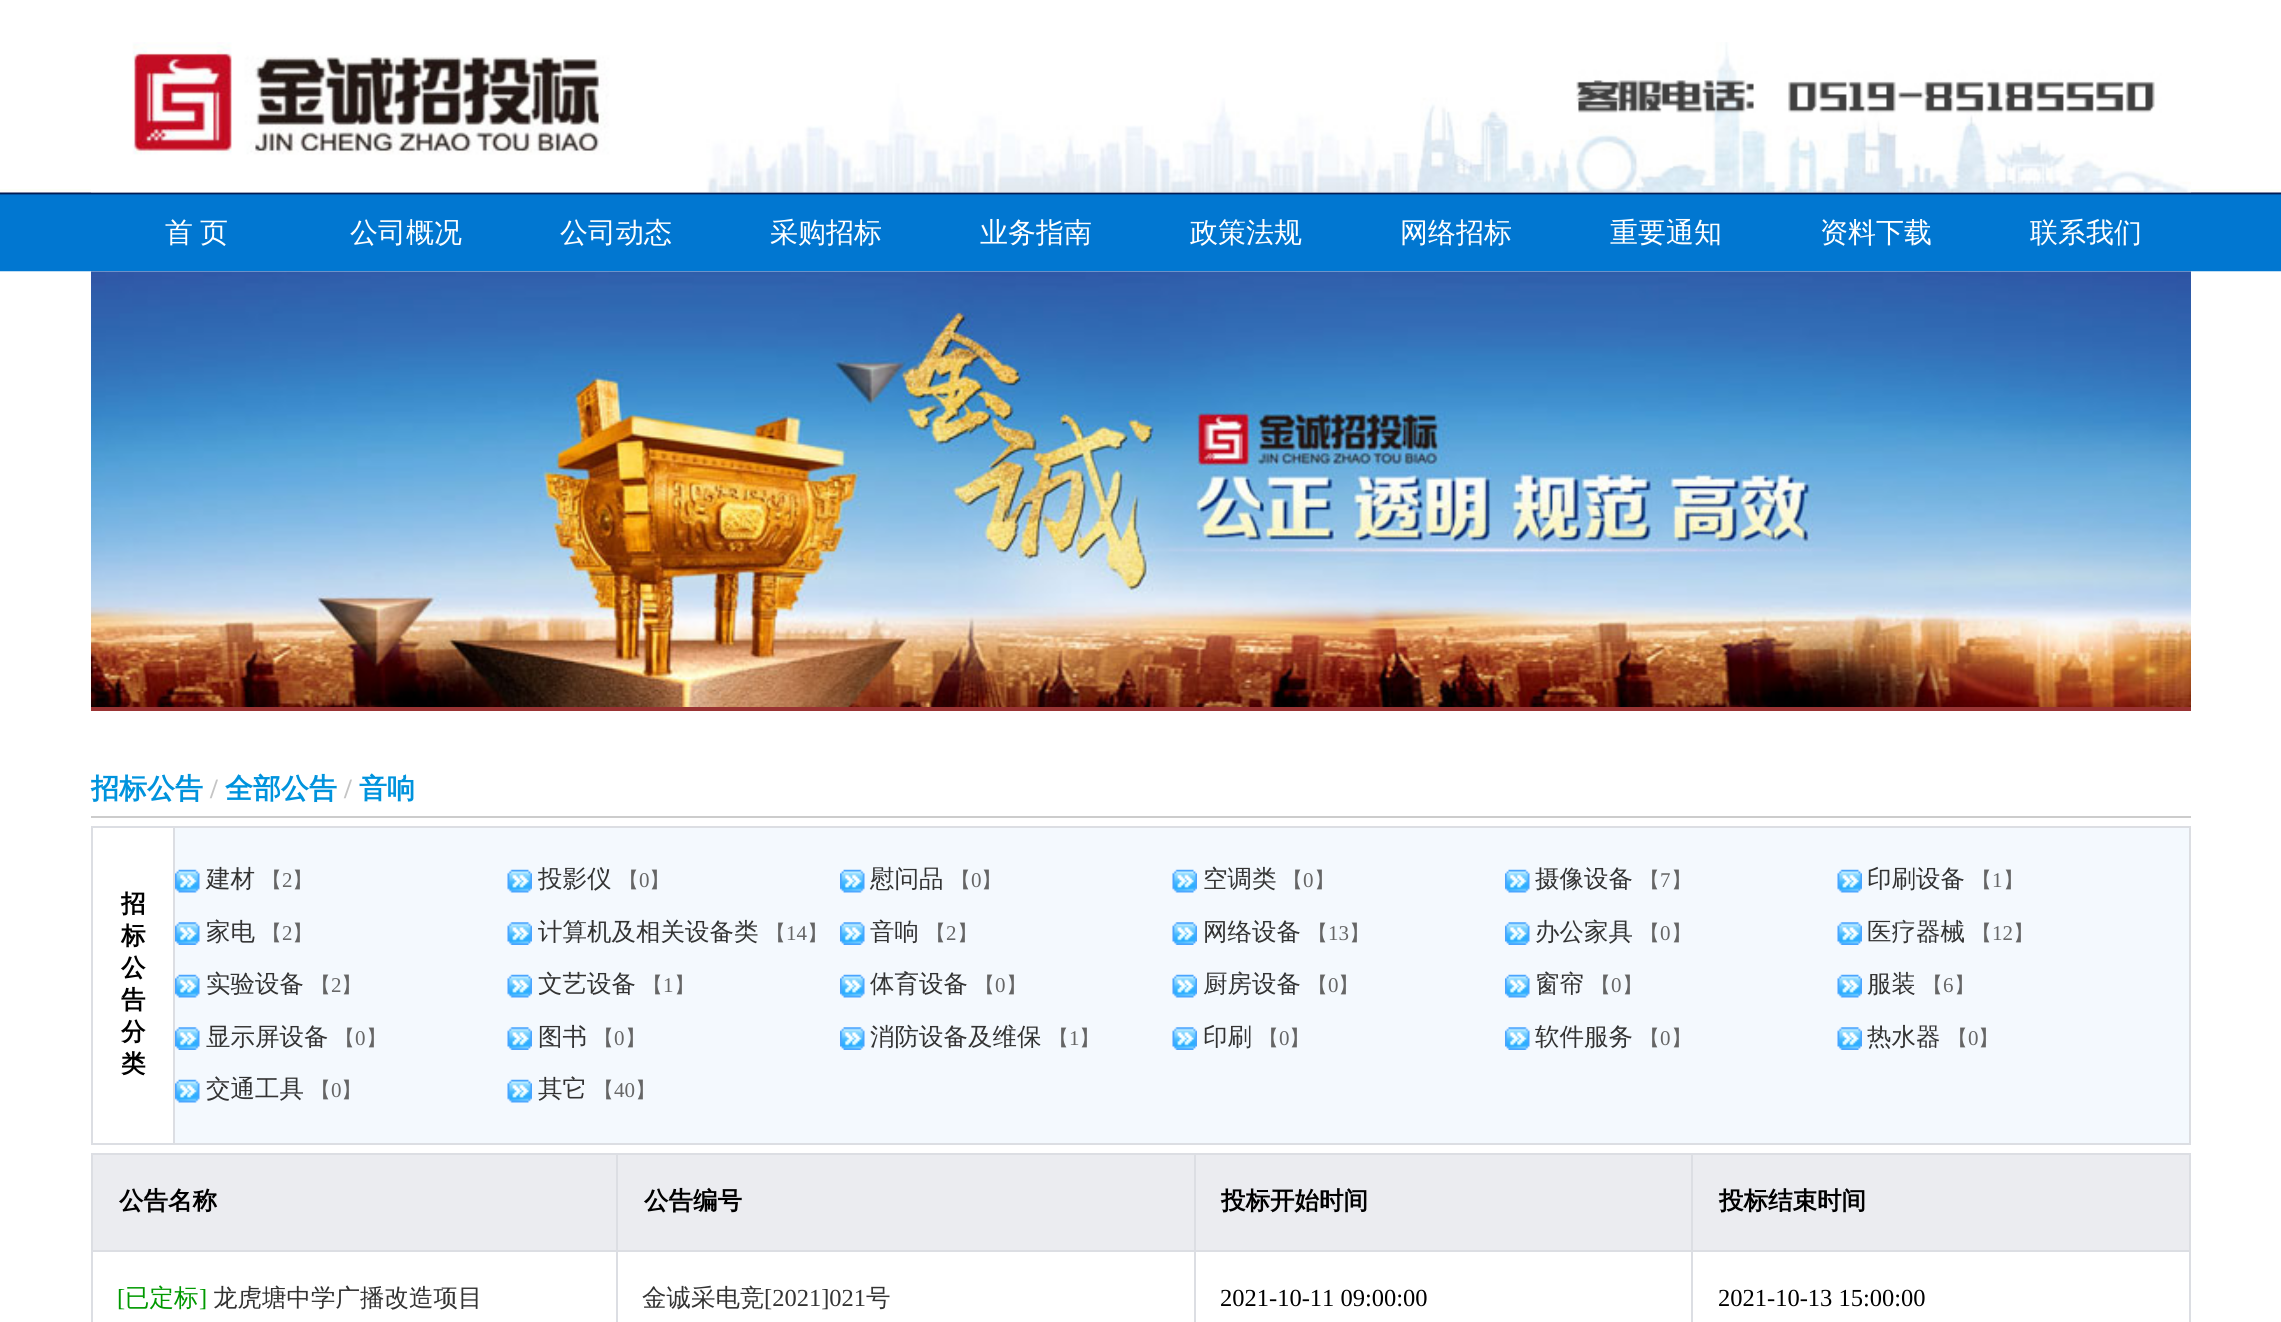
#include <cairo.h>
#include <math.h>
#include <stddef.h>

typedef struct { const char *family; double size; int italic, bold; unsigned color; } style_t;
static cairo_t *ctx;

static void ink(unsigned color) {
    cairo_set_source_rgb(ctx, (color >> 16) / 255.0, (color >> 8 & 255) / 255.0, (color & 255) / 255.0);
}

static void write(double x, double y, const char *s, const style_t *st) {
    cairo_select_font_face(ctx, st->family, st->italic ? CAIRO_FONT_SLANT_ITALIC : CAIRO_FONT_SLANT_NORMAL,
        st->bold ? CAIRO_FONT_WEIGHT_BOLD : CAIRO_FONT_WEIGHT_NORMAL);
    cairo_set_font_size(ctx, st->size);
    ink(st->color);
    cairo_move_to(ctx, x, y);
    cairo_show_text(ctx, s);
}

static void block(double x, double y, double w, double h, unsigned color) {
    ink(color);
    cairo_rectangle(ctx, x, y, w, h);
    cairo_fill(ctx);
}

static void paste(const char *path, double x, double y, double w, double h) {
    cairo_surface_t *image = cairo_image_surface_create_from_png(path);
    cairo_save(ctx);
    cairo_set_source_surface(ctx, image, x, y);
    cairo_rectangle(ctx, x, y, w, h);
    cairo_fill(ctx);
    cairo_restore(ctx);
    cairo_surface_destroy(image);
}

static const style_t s1 = {"WenQuanYi Zen Hei Medium", 28, 0, 0, 0xffffff};
static const style_t s2 = {"WenQuanYi Zen Hei", 28, 0, 1, 0x0093dd};
static const style_t s3 = {"Liberation Serif", 28, 0, 1, 0xc5c5c5};
static const style_t s4 = {"WenQuanYi Zen Hei", 24.5, 0, 1, 0x000000};
static const style_t s5 = {"WenQuanYi Zen Hei Medium", 24.5, 0, 0, 0x333333};
static const style_t s6 = {"WenQuanYi Zen Hei Medium", 21, 0, 0, 0x666666};
static const style_t s7 = {"Liberation Serif", 21, 0, 0, 0x666666};
static const style_t s8 = {"Liberation Serif", 24.5, 0, 0, 0x009900};
static const style_t s9 = {"WenQuanYi Zen Hei Medium", 24.5, 0, 0, 0x009900};
static const style_t s10 = {"Liberation Serif", 24.5, 0, 0, 0x333333};
static const style_t s11 = {"Liberation Serif", 24.5, 0, 0, 0x000000};

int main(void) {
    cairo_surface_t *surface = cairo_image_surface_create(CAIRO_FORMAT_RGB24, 2281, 1322);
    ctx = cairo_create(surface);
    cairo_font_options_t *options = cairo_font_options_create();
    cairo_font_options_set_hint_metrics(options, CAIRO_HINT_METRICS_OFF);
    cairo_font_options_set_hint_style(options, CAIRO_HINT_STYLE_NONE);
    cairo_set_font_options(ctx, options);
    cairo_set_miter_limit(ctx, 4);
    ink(0xffffff);
    cairo_paint(ctx);
    paste("pic1.png", 0, 189, 2281, 83);
    paste("pic2.png", 91, 42, 2100, 151);
    write(165, 242, "首", &s1);
    write(200, 242, "页", &s1);
    write(350, 242, "公司概况", &s1);
    write(560, 242, "公司动态", &s1);
    write(770, 242, "采购招标", &s1);
    write(980, 242, "业务指南", &s1);
    write(1190, 242, "政策法规", &s1);
    write(1400, 242, "网络招标", &s1);
    write(1610, 242, "重要通知", &s1);
    write(1820, 242, "资料下载", &s1);
    write(2030, 242, "联系我们", &s1);
    paste("pic3.png", 91, 271, 2100, 436);
    block(91, 707, 2100, 4, 0x993333);
    block(91, 816, 2100, 2, 0xcccccc);
    write(91, 798, "招标公告", &s2);
    write(210, 798, "/", &s3);
    write(225, 798, "全部公告", &s2);
    write(344, 798, "/", &s3);
    write(359, 798, "音响", &s2);
    block(173, 826, 2018, 2, 0xdcdee3);
    block(2189, 826, 2, 319, 0xdcdee3);
    block(173, 1143, 2018, 2, 0xdcdee3);
    block(173, 826, 2, 319, 0xdcdee3);
    block(91, 826, 84, 2, 0xdcdee3);
    block(91, 1143, 84, 2, 0xdcdee3);
    block(91, 826, 2, 319, 0xdcdee3);
    write(121, 912, "招", &s4);
    write(121, 944, "标", &s4);
    write(121, 976, "公", &s4);
    write(121, 1008, "告", &s4);
    write(121, 1040, "分", &s4);
    write(121, 1072, "类", &s4);
    block(175, 828, 2014, 315, 0xf4f9fe);
    paste("pic4.png", 175, 869, 25, 24);
    write(206, 887, "建材", &s5);
    write(261, 887, "【", &s6);
    write(282, 887, "2", &s7);
    write(292, 887, "】", &s6);
    paste("pic5.png", 507, 869, 25, 24);
    write(538, 887, "投影仪", &s5);
    write(618, 887, "【", &s6);
    write(639, 887, "0", &s7);
    write(649, 887, "】", &s6);
    paste("pic4.png", 840, 869, 25, 24);
    write(870, 887, "慰问品", &s5);
    write(950, 887, "【", &s6);
    write(971, 887, "0", &s7);
    write(981, 887, "】", &s6);
    paste("pic5.png", 1172, 869, 25, 24);
    write(1203, 887, "空调类", &s5);
    write(1282, 887, "【", &s6);
    write(1303, 887, "0", &s7);
    write(1314, 887, "】", &s6);
    paste("pic6.png", 1505, 869, 25, 24);
    write(1535, 887, "摄像设备", &s5);
    write(1639, 887, "【", &s6);
    write(1660, 887, "7", &s7);
    write(1671, 887, "】", &s6);
    paste("pic5.png", 1837, 869, 25, 24);
    write(1867, 887, "印刷设备", &s5);
    write(1971, 887, "【", &s6);
    write(1992, 887, "1", &s7);
    write(2003, 887, "】", &s6);
    paste("pic7.png", 175, 922, 25, 23);
    write(206, 940, "家电", &s5);
    write(261, 940, "【", &s6);
    write(282, 940, "2", &s7);
    write(292, 940, "】", &s6);
    paste("pic8.png", 507, 922, 25, 23);
    write(538, 940, "计算机及相关设备类", &s5);
    write(765, 940, "【", &s6);
    write(786, 940, "14", &s7);
    write(807, 940, "】", &s6);
    paste("pic7.png", 840, 922, 25, 23);
    write(870, 940, "音响", &s5);
    write(925, 940, "【", &s6);
    write(946, 940, "2", &s7);
    write(957, 940, "】", &s6);
    paste("pic8.png", 1172, 922, 25, 23);
    write(1203, 940, "网络设备", &s5);
    write(1307, 940, "【", &s6);
    write(1328, 940, "13", &s7);
    write(1349, 940, "】", &s6);
    paste("pic9.png", 1505, 922, 25, 23);
    write(1535, 940, "办公家具", &s5);
    write(1639, 940, "【", &s6);
    write(1660, 940, "0", &s7);
    write(1671, 940, "】", &s6);
    paste("pic8.png", 1837, 922, 25, 23);
    write(1867, 940, "医疗器械", &s5);
    write(1971, 940, "【", &s6);
    write(1992, 940, "12", &s7);
    write(2013, 940, "】", &s6);
    paste("pic4.png", 175, 974, 25, 24);
    write(206, 992, "实验设备", &s5);
    write(310, 992, "【", &s6);
    write(331, 992, "2", &s7);
    write(341, 992, "】", &s6);
    paste("pic5.png", 507, 974, 25, 24);
    write(538, 992, "文艺设备", &s5);
    write(642, 992, "【", &s6);
    write(663, 992, "1", &s7);
    write(674, 992, "】", &s6);
    paste("pic4.png", 840, 974, 25, 24);
    write(870, 992, "体育设备", &s5);
    write(974, 992, "【", &s6);
    write(995, 992, "0", &s7);
    write(1006, 992, "】", &s6);
    paste("pic5.png", 1172, 974, 25, 24);
    write(1203, 992, "厨房设备", &s5);
    write(1307, 992, "【", &s6);
    write(1328, 992, "0", &s7);
    write(1338, 992, "】", &s6);
    paste("pic6.png", 1505, 974, 25, 24);
    write(1535, 992, "窗帘", &s5);
    write(1590, 992, "【", &s6);
    write(1611, 992, "0", &s7);
    write(1622, 992, "】", &s6);
    paste("pic5.png", 1837, 974, 25, 24);
    write(1867, 992, "服装", &s5);
    write(1922, 992, "【", &s6);
    write(1943, 992, "6", &s7);
    write(1954, 992, "】", &s6);
    paste("pic7.png", 175, 1027, 25, 23);
    write(206, 1045, "显示屏设备", &s5);
    write(334, 1045, "【", &s6);
    write(355, 1045, "0", &s7);
    write(366, 1045, "】", &s6);
    paste("pic8.png", 507, 1027, 25, 23);
    write(538, 1045, "图书", &s5);
    write(593, 1045, "【", &s6);
    write(614, 1045, "0", &s7);
    write(625, 1045, "】", &s6);
    paste("pic7.png", 840, 1027, 25, 23);
    write(870, 1045, "消防设备及维保", &s5);
    write(1048, 1045, "【", &s6);
    write(1069, 1045, "1", &s7);
    write(1079, 1045, "】", &s6);
    paste("pic8.png", 1172, 1027, 25, 23);
    write(1203, 1045, "印刷", &s5);
    write(1258, 1045, "【", &s6);
    write(1279, 1045, "0", &s7);
    write(1289, 1045, "】", &s6);
    paste("pic9.png", 1505, 1027, 25, 23);
    write(1535, 1045, "软件服务", &s5);
    write(1639, 1045, "【", &s6);
    write(1660, 1045, "0", &s7);
    write(1671, 1045, "】", &s6);
    paste("pic8.png", 1837, 1027, 25, 23);
    write(1867, 1045, "热水器", &s5);
    write(1947, 1045, "【", &s6);
    write(1968, 1045, "0", &s7);
    write(1978, 1045, "】", &s6);
    paste("pic4.png", 175, 1079, 25, 24);
    write(206, 1097, "交通工具", &s5);
    write(310, 1097, "【", &s6);
    write(331, 1097, "0", &s7);
    write(341, 1097, "】", &s6);
    paste("pic5.png", 507, 1079, 25, 24);
    write(538, 1097, "其它", &s5);
    write(593, 1097, "【", &s6);
    write(614, 1097, "40", &s7);
    write(635, 1097, "】", &s6);
    block(93, 1155, 2096, 95, 0xebecf0);
    block(91, 1250, 2100, 2, 0xdcdee3);
    block(1691, 1153, 500, 2, 0xdcdee3);
    block(1691, 1250, 2, 72, 0xdcdee3);
    block(1691, 1153, 2, 98, 0xdcdee3);
    block(1194, 1153, 498, 2, 0xdcdee3);
    block(1194, 1250, 2, 72, 0xdcdee3);
    block(1194, 1153, 2, 98, 0xdcdee3);
    block(616, 1153, 579, 2, 0xdcdee3);
    block(616, 1250, 2, 72, 0xdcdee3);
    block(616, 1153, 2, 98, 0xdcdee3);
    block(91, 1153, 527, 2, 0xdcdee3);
    block(91, 1250, 2, 72, 0xdcdee3);
    block(91, 1153, 2, 98, 0xdcdee3);
    write(119, 1209, "公告名称", &s4);
    write(644, 1209, "公告编号", &s4);
    write(1221, 1209, "投标开始时间", &s4);
    block(2189, 1250, 2, 72, 0xdcdee3);
    block(2189, 1153, 2, 98, 0xdcdee3);
    write(1719, 1209, "投标结束时间", &s4);
    write(117, 1306, "[", &s8);
    write(125, 1306, "已定标", &s9);
    write(199, 1306, "]", &s8);
    write(213, 1306, "龙虎塘中学广播改造项目", &s5);
    write(642, 1306, "金诚采电竞", &s5);
    write(764, 1306, "[2021]021", &s10);
    write(866, 1306, "号", &s5);
    write(1220, 1306, "2021-10-11 09:00:00", &s11);
    write(1718, 1306, "2021-10-13 15:00:00", &s11);
    cairo_surface_write_to_png(surface, "screenshot.png");
    cairo_font_options_destroy(options);
    cairo_destroy(ctx);
    cairo_surface_destroy(surface);
    return 0;
}
